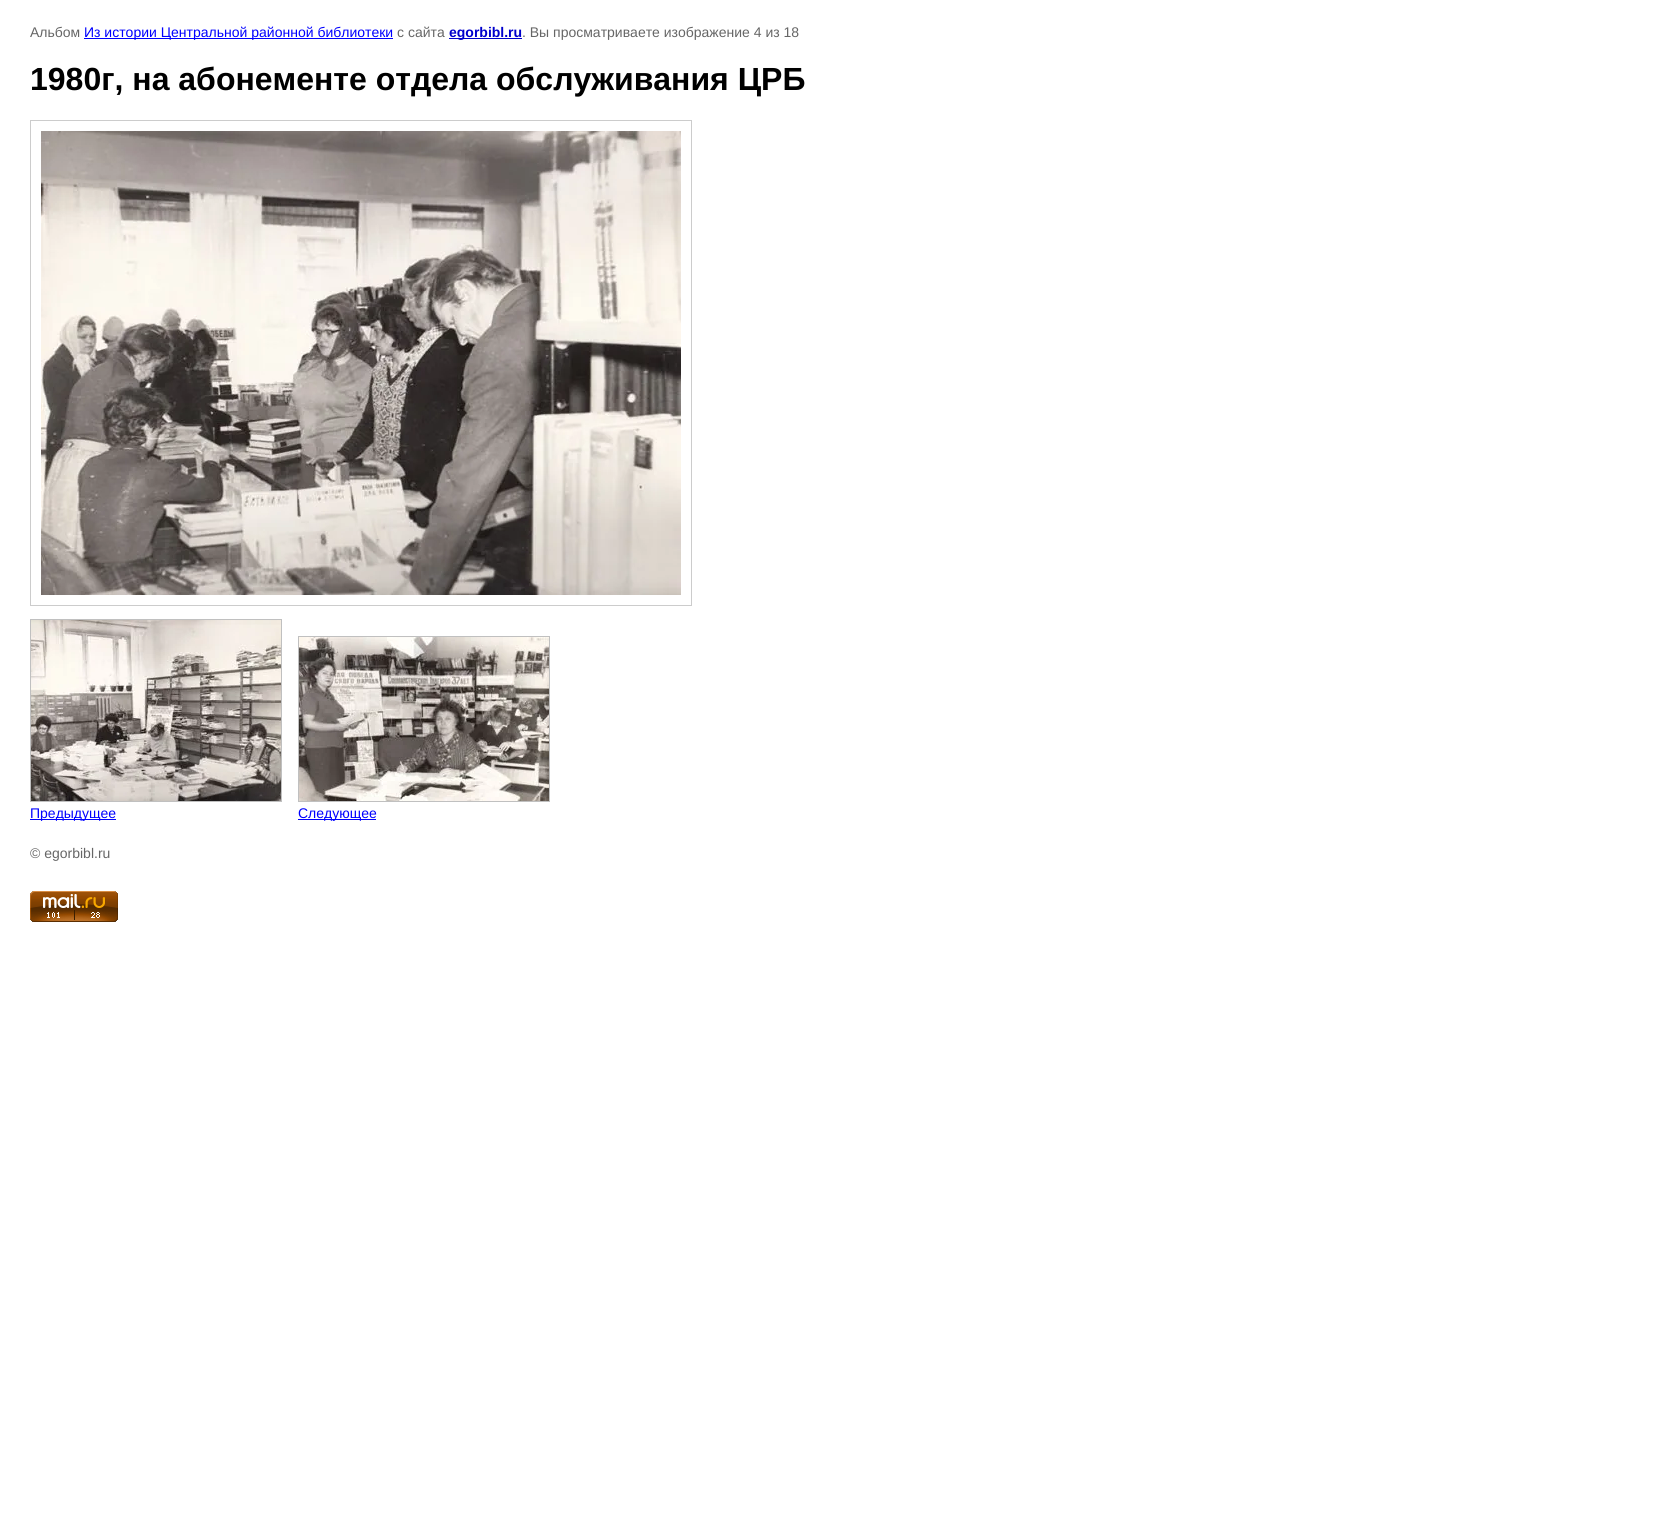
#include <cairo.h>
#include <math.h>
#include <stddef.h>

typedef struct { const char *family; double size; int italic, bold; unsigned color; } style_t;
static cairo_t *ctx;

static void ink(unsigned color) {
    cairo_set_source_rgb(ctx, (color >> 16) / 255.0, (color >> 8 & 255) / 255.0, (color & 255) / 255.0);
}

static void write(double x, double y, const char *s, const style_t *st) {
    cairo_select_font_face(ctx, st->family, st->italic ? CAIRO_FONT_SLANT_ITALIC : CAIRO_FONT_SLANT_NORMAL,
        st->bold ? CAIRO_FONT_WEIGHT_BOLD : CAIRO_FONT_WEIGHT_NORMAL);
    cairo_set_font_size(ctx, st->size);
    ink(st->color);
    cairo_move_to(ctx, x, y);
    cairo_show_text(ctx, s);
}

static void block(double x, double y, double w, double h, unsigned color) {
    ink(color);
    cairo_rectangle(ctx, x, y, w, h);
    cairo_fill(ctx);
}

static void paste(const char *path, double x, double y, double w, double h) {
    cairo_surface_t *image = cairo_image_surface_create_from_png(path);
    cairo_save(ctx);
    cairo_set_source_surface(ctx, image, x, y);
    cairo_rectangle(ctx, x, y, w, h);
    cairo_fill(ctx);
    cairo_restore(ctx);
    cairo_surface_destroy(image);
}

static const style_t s1 = {"Liberation Sans", 14, 0, 0, 0x666666};
static const style_t s2 = {"Liberation Sans", 14, 0, 0, 0x0000ff};
static const style_t s3 = {"Liberation Sans", 14, 0, 1, 0x0000cc};
static const style_t s4 = {"Liberation Sans", 32, 0, 1, 0x000000};

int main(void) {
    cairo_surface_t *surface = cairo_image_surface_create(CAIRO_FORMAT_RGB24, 1671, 1537);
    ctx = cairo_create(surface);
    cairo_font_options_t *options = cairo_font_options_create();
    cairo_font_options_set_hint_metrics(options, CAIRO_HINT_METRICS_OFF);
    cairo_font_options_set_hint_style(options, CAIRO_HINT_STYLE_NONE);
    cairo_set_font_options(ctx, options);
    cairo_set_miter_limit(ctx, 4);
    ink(0xffffff);
    cairo_paint(ctx);
    write(30, 37, "Альбом", &s1);
    block(84, 38, 309, 1, 0x0000ff);
    write(84, 37, "Из истории Центральной районной библиотеки", &s2);
    write(397, 37, "с сайта", &s1);
    block(449, 38, 73, 1, 0x0000cc);
    write(449, 37, "egorbibl.ru", &s3);
    write(522, 37, ". Вы просматриваете изображение 4 из 18", &s1);
    write(30, 90, "1980г, на абонементе отдела обслуживания ЦРБ", &s4);
    cairo_rectangle(ctx, 30.5, 120.5, 661, 485);
    ink(0xcccccc);
    cairo_set_line_width(ctx, 1);
    cairo_stroke(ctx);
    paste("pic1.png", 41, 131, 640, 464);
    cairo_rectangle(ctx, 30.5, 619.5, 251, 182);
    ink(0xc0c0c0);
    cairo_stroke(ctx);
    paste("pic2.png", 31, 620, 250, 181);
    block(30, 819, 86, 1, 0x0000ff);
    write(30, 818, "Предыдущее", &s2);
    cairo_rectangle(ctx, 298.5, 636.5, 251, 165);
    ink(0xc0c0c0);
    cairo_stroke(ctx);
    paste("pic3.png", 299, 637, 250, 164);
    block(298, 819, 78, 1, 0x0000ff);
    write(298, 818, "Следующее", &s2);
    write(30, 858, "© egorbibl.ru", &s1);
    paste("pic4.png", 30, 891, 88, 31);
    cairo_surface_write_to_png(surface, "screenshot.png");
    cairo_font_options_destroy(options);
    cairo_destroy(ctx);
    cairo_surface_destroy(surface);
    return 0;
}
